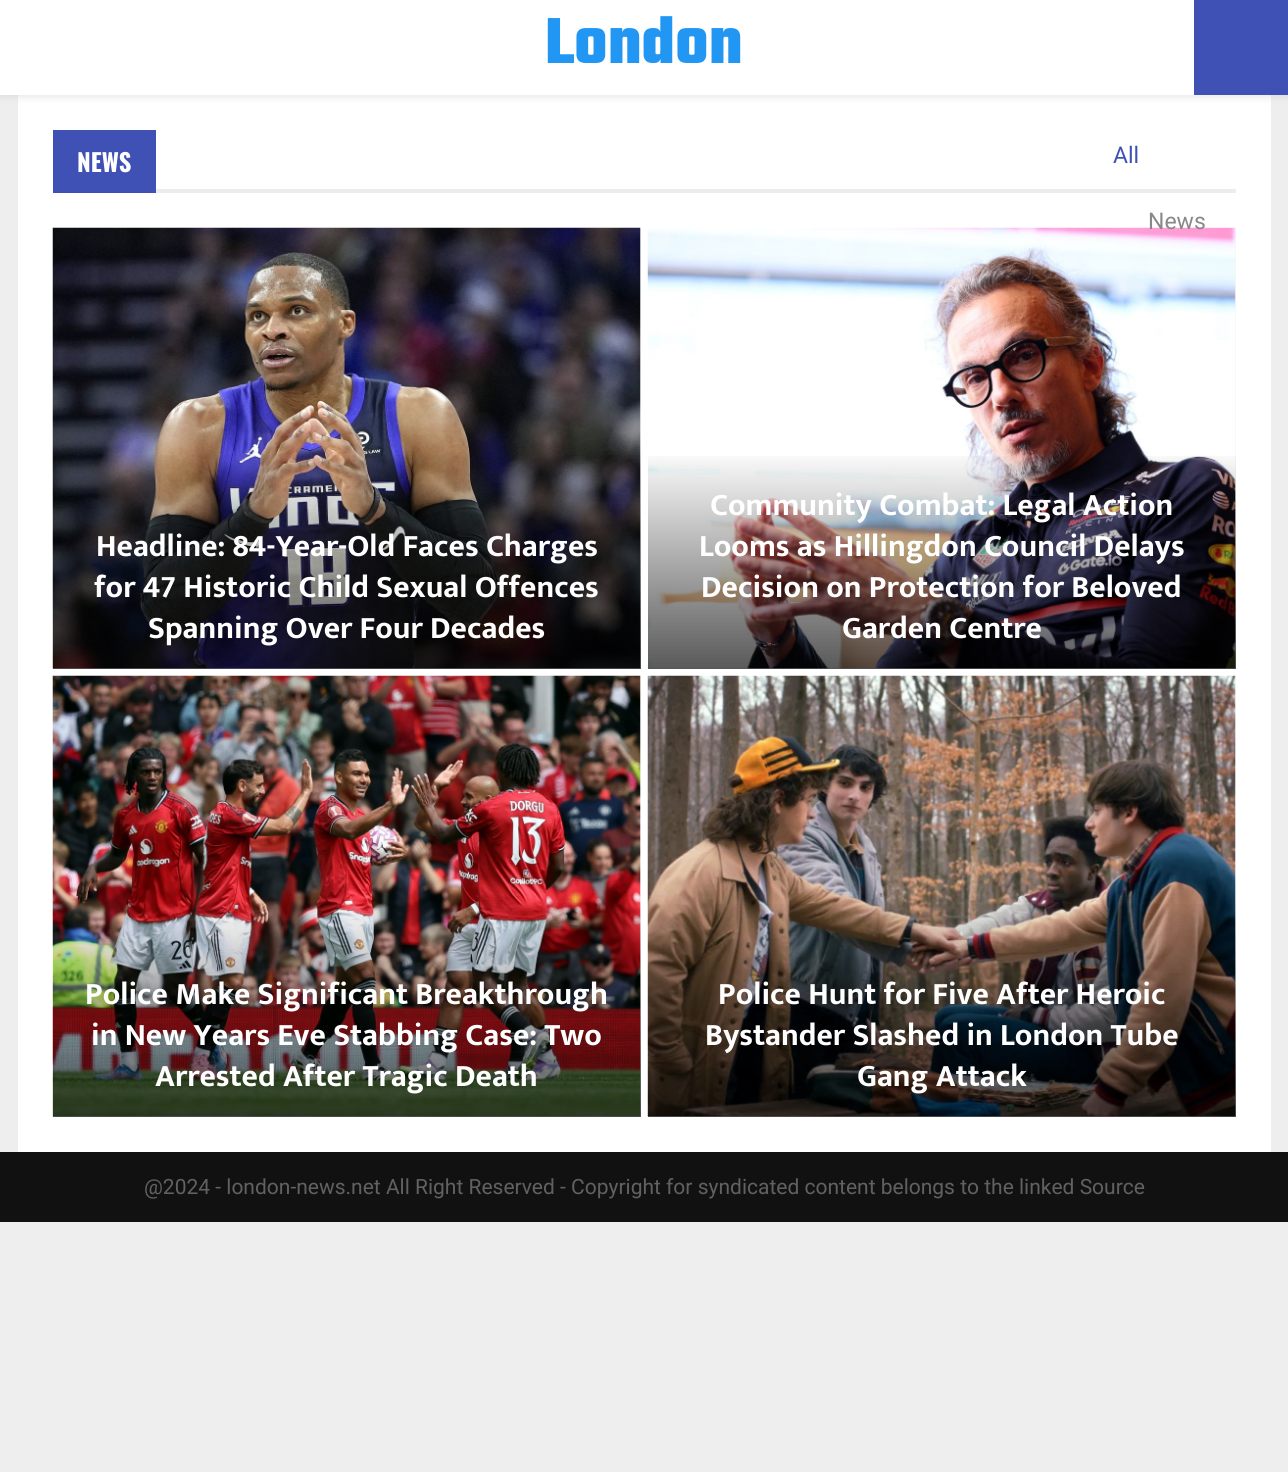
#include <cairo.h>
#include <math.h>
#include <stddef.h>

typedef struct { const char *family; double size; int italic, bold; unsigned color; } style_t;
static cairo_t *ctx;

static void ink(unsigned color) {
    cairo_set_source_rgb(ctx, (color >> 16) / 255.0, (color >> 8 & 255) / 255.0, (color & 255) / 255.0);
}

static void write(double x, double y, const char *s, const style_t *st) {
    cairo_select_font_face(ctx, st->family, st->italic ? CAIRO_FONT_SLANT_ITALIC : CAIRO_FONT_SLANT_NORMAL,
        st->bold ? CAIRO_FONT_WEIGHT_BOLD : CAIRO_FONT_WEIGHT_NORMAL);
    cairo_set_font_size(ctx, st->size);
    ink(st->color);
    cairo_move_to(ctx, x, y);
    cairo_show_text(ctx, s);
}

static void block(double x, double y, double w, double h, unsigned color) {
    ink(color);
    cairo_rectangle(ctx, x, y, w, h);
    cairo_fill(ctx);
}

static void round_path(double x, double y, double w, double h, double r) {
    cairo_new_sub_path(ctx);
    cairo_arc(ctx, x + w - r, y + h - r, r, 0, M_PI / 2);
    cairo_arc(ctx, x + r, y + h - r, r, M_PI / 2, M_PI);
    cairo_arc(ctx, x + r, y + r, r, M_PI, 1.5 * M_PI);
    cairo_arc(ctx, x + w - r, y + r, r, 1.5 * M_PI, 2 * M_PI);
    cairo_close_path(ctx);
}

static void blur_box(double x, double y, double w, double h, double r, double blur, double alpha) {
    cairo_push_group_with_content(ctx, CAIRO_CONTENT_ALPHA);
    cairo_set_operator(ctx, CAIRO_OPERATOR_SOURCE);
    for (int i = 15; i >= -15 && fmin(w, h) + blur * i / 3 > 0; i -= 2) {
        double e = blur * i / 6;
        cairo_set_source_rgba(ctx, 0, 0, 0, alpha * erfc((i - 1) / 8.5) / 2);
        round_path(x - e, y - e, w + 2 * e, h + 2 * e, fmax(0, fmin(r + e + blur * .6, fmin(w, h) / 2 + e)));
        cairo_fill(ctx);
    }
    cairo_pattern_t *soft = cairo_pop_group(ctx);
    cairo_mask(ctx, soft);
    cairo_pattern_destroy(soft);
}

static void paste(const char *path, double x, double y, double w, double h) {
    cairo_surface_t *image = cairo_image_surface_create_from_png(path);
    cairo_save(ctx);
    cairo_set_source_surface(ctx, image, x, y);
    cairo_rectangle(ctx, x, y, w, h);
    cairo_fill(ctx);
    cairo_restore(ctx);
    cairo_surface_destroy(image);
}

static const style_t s1 = {"Teko", 70, 0, 1, 0x2196f3};
static const style_t s2 = {"Oswald", 24.5, 0, 1, 0xffffff};
static const style_t s3 = {"Roboto", 23, 0, 0, 0x3f51b5};
static const style_t s4 = {"Roboto", 23, 0, 0, 0x888888};
static const style_t s5 = {"Mukta Vaani", 31.5, 0, 1, 0xffffff};
static const style_t s6 = {"Roboto", 21, 0, 0, 0x616161};

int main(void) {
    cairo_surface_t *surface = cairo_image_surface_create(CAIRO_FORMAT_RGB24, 1288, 1472);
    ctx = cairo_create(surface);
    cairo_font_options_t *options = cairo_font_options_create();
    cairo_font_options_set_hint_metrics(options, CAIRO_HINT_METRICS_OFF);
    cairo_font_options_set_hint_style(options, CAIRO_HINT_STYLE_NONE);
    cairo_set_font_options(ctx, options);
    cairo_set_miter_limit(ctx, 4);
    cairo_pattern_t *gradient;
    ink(0xeeeeee);
    cairo_paint(ctx);
    block(18, 95, 1253, 1057, 0xffffff);
    ink(0xbebebe);
    blur_box(0, 2, 1288, 94, 0, 4.5, 0.46);
    block(0, 0, 1194, 95, 0xffffff);
    write(545, 63, "London", &s1);
    block(1194, 0, 94, 95, 0x3f51b5);
    block(156, 189, 1080, 4, 0xececec);
    block(53, 130, 103, 63, 0x3f51b5);
    write(77, 172, "NEWS", &s2);
    write(1113, 163, "All", &s3);
    block(648, 228, 588, 441, 0xf5f5f5);
    paste("pic2.png", 647, 227, 589, 442);
    write(1148, 229, "News", &s4);
    block(53, 228, 588, 441, 0xf5f5f5);
    paste("pic1.png", 52, 227, 589, 442);
    gradient = cairo_pattern_create_linear(346, 228, 347, 669);
    cairo_pattern_add_color_stop_rgba(gradient, 0.5, 0, 0, 0, 0);
    cairo_pattern_add_color_stop_rgba(gradient, 1, 0, 0, 0, 0.65);
    cairo_set_source(ctx, gradient);
    cairo_pattern_destroy(gradient);
    cairo_rectangle(ctx, 53, 455, 588, 214);
    cairo_fill(ctx);
    write(96, 556, "Headline: 84-Year-Old Faces Charges", &s5);
    write(94, 597, "for 47 Historic Child Sexual Offences", &s5);
    write(148, 638, "Spanning Over Four Decades", &s5);
    gradient = cairo_pattern_create_linear(942, 228, 942, 669);
    cairo_pattern_add_color_stop_rgba(gradient, 0.5, 0, 0, 0, 0);
    cairo_pattern_add_color_stop_rgba(gradient, 1, 0, 0, 0, 0.65);
    cairo_set_source(ctx, gradient);
    cairo_pattern_destroy(gradient);
    cairo_rectangle(ctx, 648, 456, 588, 213);
    cairo_fill(ctx);
    write(710, 515, "Community Combat: Legal Action", &s5);
    write(699, 556, "Looms as Hillingdon Council Delays", &s5);
    write(701, 597, "Decision on Protection for Beloved", &s5);
    write(842, 638, "Garden Centre", &s5);
    block(53, 676, 588, 441, 0xf5f5f5);
    paste("pic3.png", 52, 675, 589, 442);
    gradient = cairo_pattern_create_linear(346, 676, 347, 1117);
    cairo_pattern_add_color_stop_rgba(gradient, 0.5, 0, 0, 0, 0);
    cairo_pattern_add_color_stop_rgba(gradient, 1, 0, 0, 0, 0.65);
    cairo_set_source(ctx, gradient);
    cairo_pattern_destroy(gradient);
    cairo_rectangle(ctx, 53, 903, 588, 214);
    cairo_fill(ctx);
    write(85, 1004, "Police Make Significant Breakthrough", &s5);
    write(91, 1045, "in New Years Eve Stabbing Case: Two", &s5);
    write(155, 1086, "Arrested After Tragic Death", &s5);
    block(648, 676, 588, 441, 0xf5f5f5);
    paste("pic4.png", 647, 675, 589, 442);
    gradient = cairo_pattern_create_linear(942, 676, 942, 1117);
    cairo_pattern_add_color_stop_rgba(gradient, 0.5, 0, 0, 0, 0);
    cairo_pattern_add_color_stop_rgba(gradient, 1, 0, 0, 0, 0.65);
    cairo_set_source(ctx, gradient);
    cairo_pattern_destroy(gradient);
    cairo_rectangle(ctx, 648, 904, 588, 213);
    cairo_fill(ctx);
    write(718, 1004, "Police Hunt for Five After Heroic", &s5);
    write(705, 1045, "Bystander Slashed in London Tube", &s5);
    write(857, 1086, "Gang Attack", &s5);
    block(0, 1152, 1288, 70, 0x111111);
    write(144, 1194, "@2024 - london-news.net All Right Reserved - Copyright for syndicated content belongs to the linked Source", &s6);
    cairo_surface_write_to_png(surface, "screenshot.png");
    cairo_font_options_destroy(options);
    cairo_destroy(ctx);
    cairo_surface_destroy(surface);
    return 0;
}
